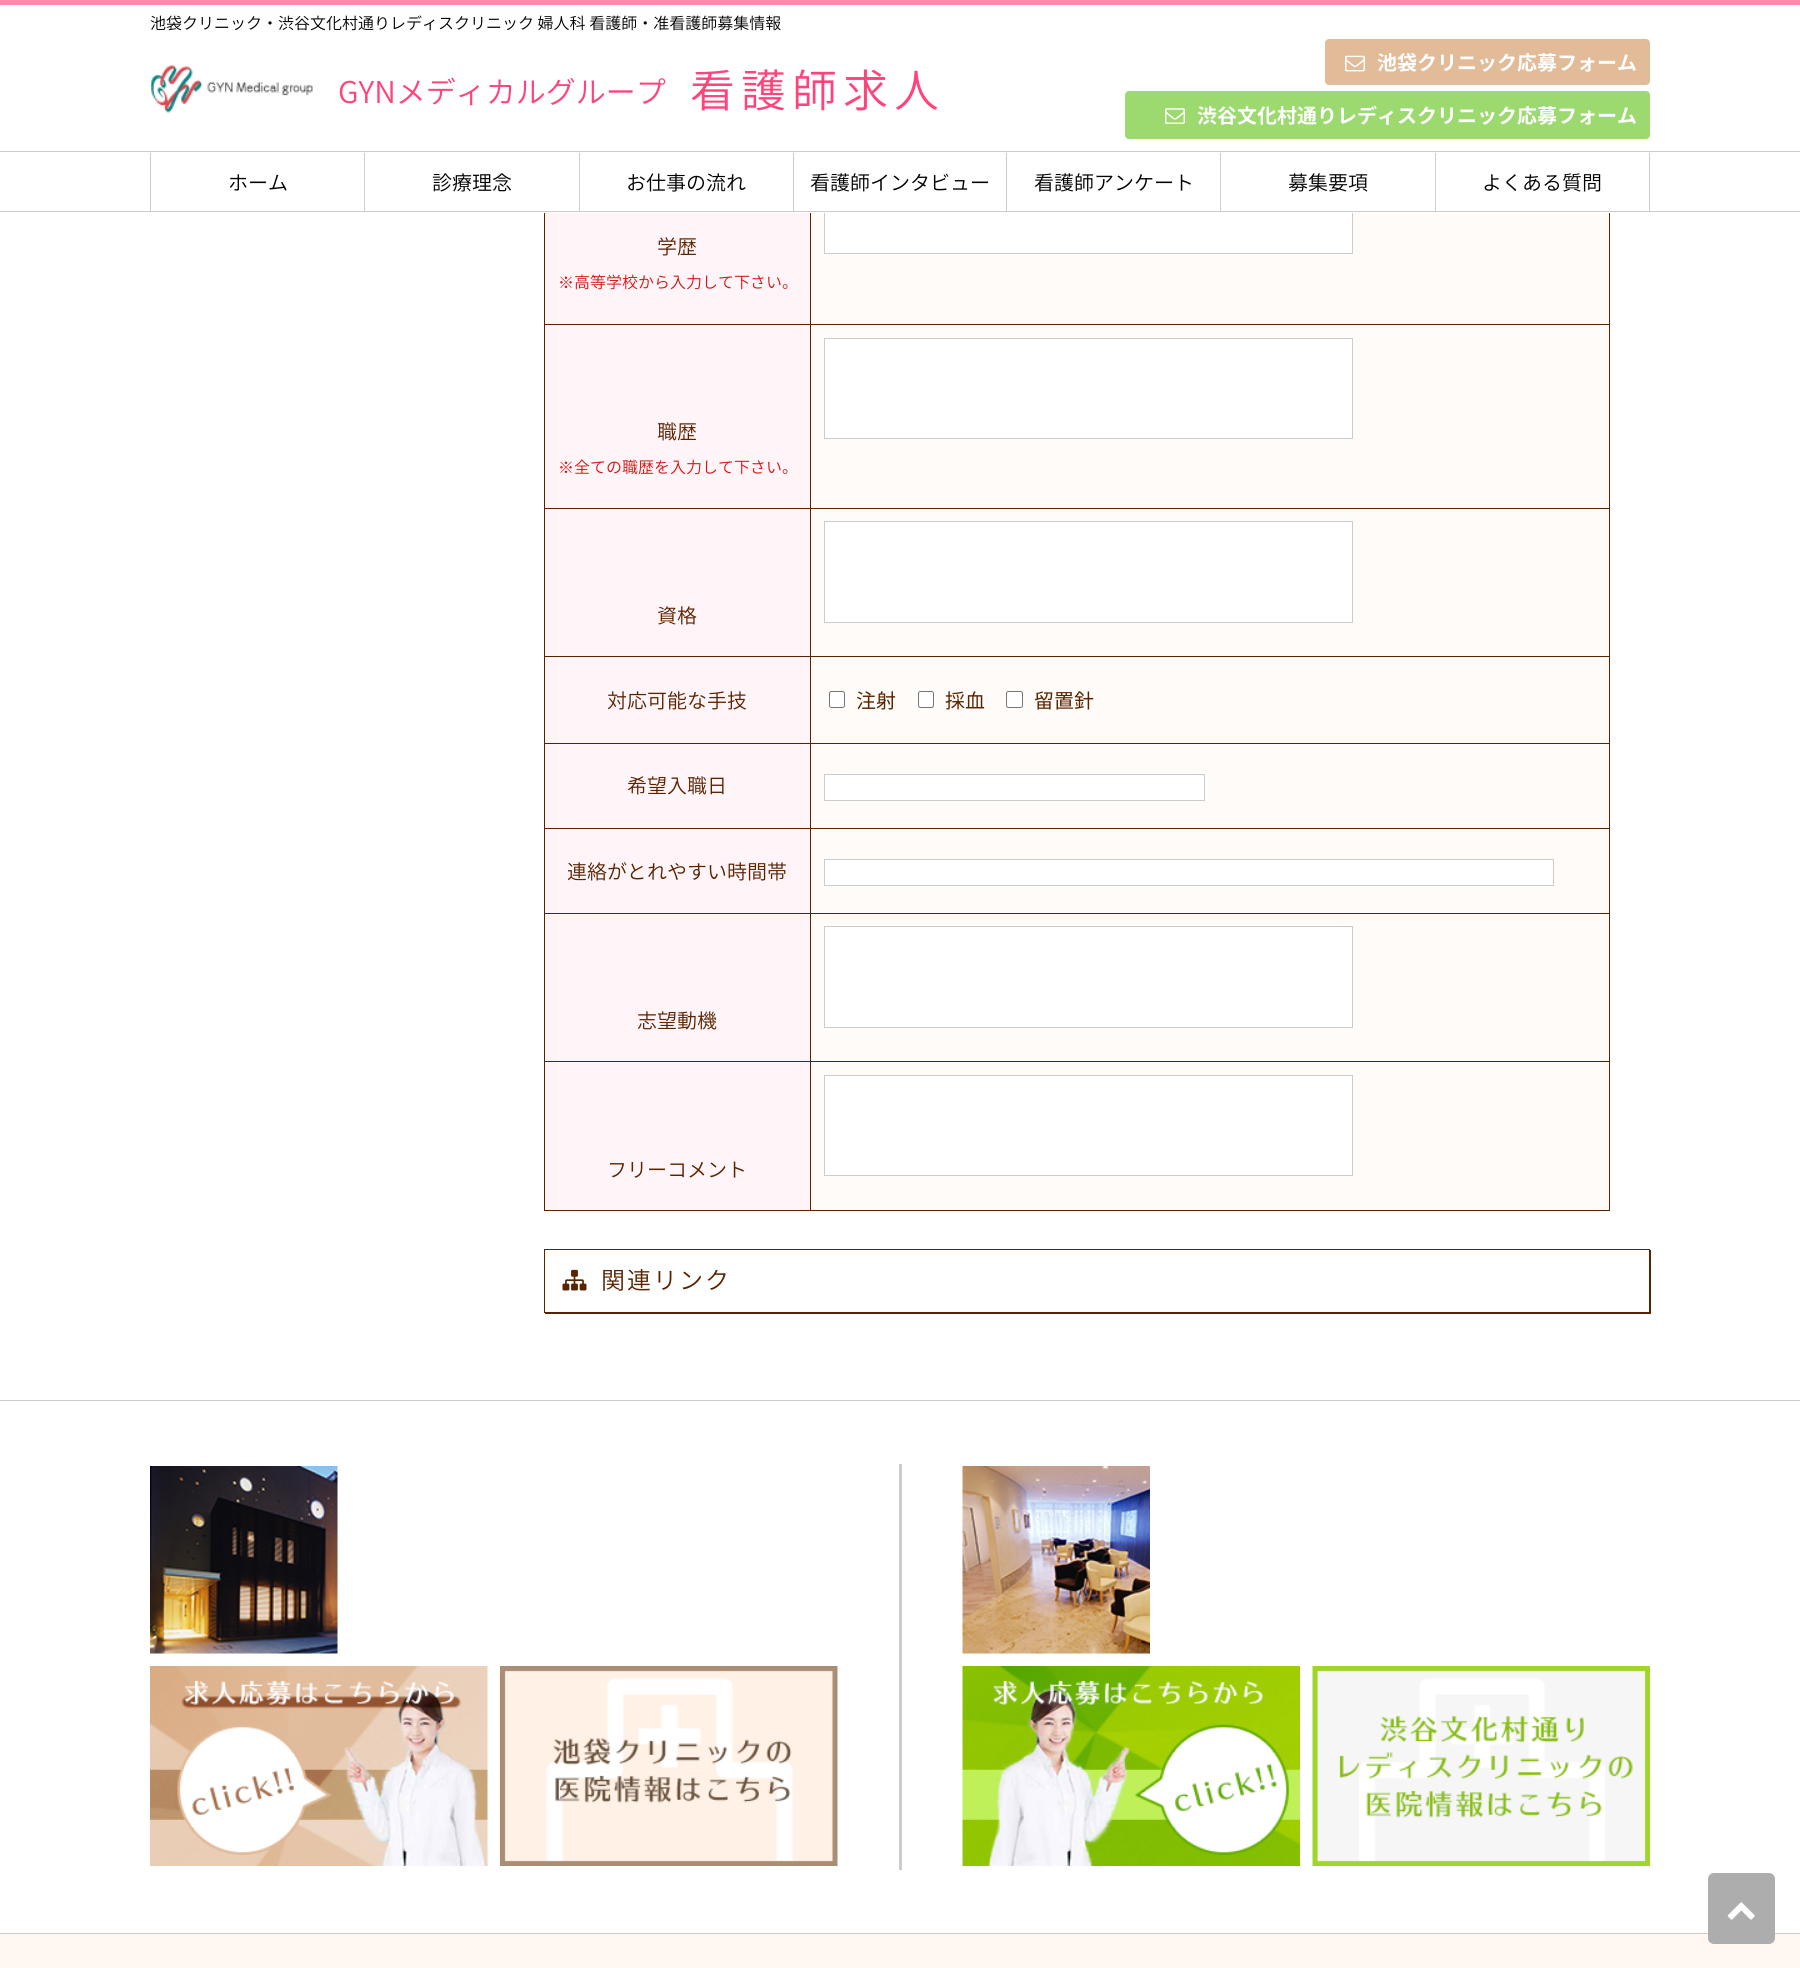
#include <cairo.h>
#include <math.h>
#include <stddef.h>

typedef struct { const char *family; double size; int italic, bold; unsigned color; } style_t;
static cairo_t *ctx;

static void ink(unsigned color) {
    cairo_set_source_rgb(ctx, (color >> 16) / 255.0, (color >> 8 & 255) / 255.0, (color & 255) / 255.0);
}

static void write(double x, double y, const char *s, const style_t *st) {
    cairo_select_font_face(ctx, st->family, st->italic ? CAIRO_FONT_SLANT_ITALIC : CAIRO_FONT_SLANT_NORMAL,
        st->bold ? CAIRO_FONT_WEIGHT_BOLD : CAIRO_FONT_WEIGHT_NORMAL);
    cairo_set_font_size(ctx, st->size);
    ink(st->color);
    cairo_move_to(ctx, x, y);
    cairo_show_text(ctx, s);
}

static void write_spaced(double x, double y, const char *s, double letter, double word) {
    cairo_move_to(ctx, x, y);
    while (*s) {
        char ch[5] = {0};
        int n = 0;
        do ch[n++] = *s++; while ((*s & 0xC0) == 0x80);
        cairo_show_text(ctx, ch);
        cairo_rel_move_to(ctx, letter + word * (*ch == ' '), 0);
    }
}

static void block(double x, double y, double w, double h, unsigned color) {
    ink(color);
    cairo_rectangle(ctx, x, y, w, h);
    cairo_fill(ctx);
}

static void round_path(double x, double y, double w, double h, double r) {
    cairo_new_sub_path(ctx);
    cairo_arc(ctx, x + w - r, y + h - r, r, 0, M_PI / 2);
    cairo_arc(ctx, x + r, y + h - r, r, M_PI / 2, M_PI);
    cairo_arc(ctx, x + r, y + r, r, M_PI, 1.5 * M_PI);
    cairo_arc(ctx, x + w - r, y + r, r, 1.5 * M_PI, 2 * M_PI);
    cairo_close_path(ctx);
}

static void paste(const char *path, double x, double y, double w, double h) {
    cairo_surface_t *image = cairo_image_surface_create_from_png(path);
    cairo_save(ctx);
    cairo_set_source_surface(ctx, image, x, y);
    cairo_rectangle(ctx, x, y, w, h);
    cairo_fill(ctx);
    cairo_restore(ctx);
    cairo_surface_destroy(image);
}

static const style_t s1 = {"Noto Sans JP Light", 16, 0, 0, 0x000000};
static const style_t s2 = {"Noto Sans JP Light", 30, 0, 0, 0xff447b};
static const style_t s3 = {"Noto Sans JP", 20, 0, 1, 0xffffff};
static const style_t s4 = {"Noto Sans JP Light", 20, 0, 0, 0x000000};
static const style_t s5 = {"Noto Sans JP Light", 20, 0, 0, 0x5a2300};
static const style_t s6 = {"WenQuanYi Zen Hei Medium", 16, 0, 0, 0xd61212};
static const style_t s7 = {"Noto Sans JP Light", 16, 0, 0, 0xd61212};
static const style_t s8 = {"Noto Sans JP", 20, 0, 0, 0x5a2300};

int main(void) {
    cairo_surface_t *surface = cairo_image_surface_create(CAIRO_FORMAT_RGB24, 1800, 1968);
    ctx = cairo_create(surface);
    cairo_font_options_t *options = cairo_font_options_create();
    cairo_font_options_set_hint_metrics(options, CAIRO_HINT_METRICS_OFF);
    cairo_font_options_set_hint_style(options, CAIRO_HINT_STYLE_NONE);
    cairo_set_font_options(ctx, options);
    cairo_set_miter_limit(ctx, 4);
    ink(0xffffff);
    cairo_paint(ctx);
    block(811, 213, 798, 111, 0xfffbf8);
    block(825, 213, 527, 40, 0xffffff);
    cairo_rectangle(ctx, 824.5, 153.5, 528, 100);
    ink(0xcccccc);
    cairo_set_line_width(ctx, 1);
    cairo_stroke(ctx);
    block(824, 153, 529, 60, 0xffffff);
    block(0, 0, 1800, 5, 0xff89ac);
    write(150, 29, "池袋クリニック・渋谷文化村通りレディスクリニック 婦人科 看護師・准看護師募集情報", &s1);
    paste("pic1.png", 150, 64, 163, 49);
    write(338, 103, "GYNメディカルグループ", &s2);
    cairo_set_font_size(ctx, 45);
    write_spaced(690, 107, "看護師求人", 6, 0);
    ink(0xe2bb98);
    round_path(1325, 39, 325, 46, 4);
    cairo_fill(ctx);
    paste("pic2.png", 1345, 55, 20, 17);
    write(1377, 70, "池袋クリニック応募フォーム", &s3);
    ink(0x9cda6f);
    round_path(1125, 91, 525, 48, 4);
    cairo_fill(ctx);
    paste("pic3.png", 1165, 108, 20, 16);
    write(1197, 123, "渋谷文化村通りレディスクリニック応募フォーム", &s3);
    block(0, 151, 1800, 1, 0xcccccc);
    block(0, 211, 1800, 1, 0xcccccc);
    block(150, 153, 1, 58, 0xcccccc);
    write(228, 190, "ホーム", &s4);
    block(364, 153, 1, 58, 0xcccccc);
    write(432, 190, "診療理念", &s4);
    block(579, 153, 1, 58, 0xcccccc);
    write(626, 190, "お仕事の流れ", &s4);
    block(793, 153, 1, 58, 0xcccccc);
    write(810, 190, "看護師インタビュー", &s4);
    block(1006, 153, 1, 58, 0xcccccc);
    write(1034, 190, "看護師アンケート", &s4);
    block(1220, 153, 1, 58, 0xcccccc);
    write(1288, 190, "募集要項", &s4);
    block(1649, 153, 1, 58, 0xcccccc);
    block(1435, 153, 1, 58, 0xcccccc);
    write(1482, 190, "よくある質問", &s4);
    block(0, 1400, 1800, 1, 0xcccccc);
    block(545, 213, 265, 111, 0xfff5f8);
    write(657, 254, "学歴", &s5);
    write(558, 288, "※", &s6);
    write(574, 288, "高等学校から入力して下さい。", &s7);
    block(544, 324, 1066, 1, 0x5a2300);
    block(544, 508, 1066, 1, 0x5a2300);
    block(545, 509, 265, 234, 0xfff5f8);
    block(811, 509, 798, 234, 0xfffbf8);
    block(544, 656, 1066, 1, 0x5a2300);
    block(544, 743, 1066, 1, 0x5a2300);
    block(544, 828, 1066, 1, 0x5a2300);
    block(544, 913, 1066, 1, 0x5a2300);
    block(545, 914, 265, 296, 0xfff5f8);
    block(811, 914, 798, 296, 0xfffbf8);
    block(544, 1061, 1066, 1, 0x5a2300);
    block(1609, 1061, 1, 150, 0x5a2300);
    block(1609, 913, 1, 150, 0x5a2300);
    block(1609, 828, 1, 86, 0x5a2300);
    block(1609, 743, 1, 86, 0x5a2300);
    block(1609, 656, 1, 88, 0x5a2300);
    block(1609, 508, 1, 150, 0x5a2300);
    block(1609, 213, 1, 296, 0x5a2300);
    block(544, 1210, 1066, 1, 0x5a2300);
    block(544, 1061, 1, 150, 0x5a2300);
    block(544, 913, 1, 150, 0x5a2300);
    block(544, 828, 1, 86, 0x5a2300);
    block(544, 743, 1, 86, 0x5a2300);
    block(544, 656, 1, 88, 0x5a2300);
    block(544, 508, 1, 150, 0x5a2300);
    block(544, 213, 1, 296, 0x5a2300);
    block(545, 325, 265, 183, 0xfff5f8);
    write(657, 439, "職歴", &s5);
    write(558, 473, "※", &s6);
    write(574, 473, "全ての職歴を入力して下さい。", &s7);
    block(811, 325, 798, 183, 0xfffbf8);
    ink(0xffffff);
    cairo_rectangle(ctx, 824.5, 338.5, 528, 100);
    cairo_fill_preserve(ctx);
    ink(0xcccccc);
    cairo_stroke(ctx);
    write(657, 623, "資格", &s5);
    ink(0xffffff);
    cairo_rectangle(ctx, 824.5, 521.5, 528, 101);
    cairo_fill_preserve(ctx);
    ink(0xcccccc);
    cairo_stroke(ctx);
    write(607, 708, "対応可能な手技", &s5);
    ink(0xffffff);
    round_path(829.5, 691.5, 15, 16, 2);
    cairo_fill_preserve(ctx);
    ink(0x767676);
    cairo_stroke(ctx);
    write(856, 708, "注射", &s8);
    ink(0xffffff);
    round_path(918.5, 691.5, 15, 16, 2);
    cairo_fill_preserve(ctx);
    ink(0x767676);
    cairo_stroke(ctx);
    write(945, 708, "採血", &s8);
    ink(0xffffff);
    round_path(1006.5, 691.5, 16, 16, 2);
    cairo_fill_preserve(ctx);
    ink(0x767676);
    cairo_stroke(ctx);
    write(1034, 708, "留置針", &s8);
    block(545, 744, 265, 84, 0xfff5f8);
    write(627, 793, "希望入職日", &s5);
    block(811, 744, 798, 84, 0xfffbf8);
    ink(0xffffff);
    cairo_rectangle(ctx, 824.5, 774.5, 380, 26);
    cairo_fill_preserve(ctx);
    ink(0xcccccc);
    cairo_stroke(ctx);
    block(545, 829, 265, 84, 0xfff5f8);
    write(567, 879, "連絡がとれやすい時間帯", &s5);
    block(811, 829, 798, 84, 0xfffbf8);
    ink(0xffffff);
    cairo_rectangle(ctx, 824.5, 859.5, 729, 26);
    cairo_fill_preserve(ctx);
    ink(0xcccccc);
    cairo_stroke(ctx);
    write(637, 1028, "志望動機", &s5);
    ink(0xffffff);
    cairo_rectangle(ctx, 824.5, 926.5, 528, 101);
    cairo_fill_preserve(ctx);
    ink(0xcccccc);
    cairo_stroke(ctx);
    block(810, 213, 1, 998, 0x5a2300);
    write(607, 1177, "フリーコメント", &s5);
    ink(0xffffff);
    cairo_rectangle(ctx, 824.5, 1075.5, 528, 100);
    cairo_fill_preserve(ctx);
    ink(0xcccccc);
    cairo_stroke(ctx);
    ink(0x5a2300);
    cairo_new_path(ctx);
    cairo_move_to(ctx, 545, 1312);
    cairo_line_to(ctx, 545, 1314);
    cairo_line_to(ctx, 1651, 1314);
    cairo_line_to(ctx, 1651, 1250);
    cairo_line_to(ctx, 1650, 1250);
    cairo_line_to(ctx, 1650, 1312);
    cairo_close_path(ctx);
    cairo_fill(ctx);
    cairo_rectangle(ctx, 544.5, 1249.5, 1105, 63);
    cairo_stroke(ctx);
    paste("pic4.png", 562, 1269, 25, 22);
    cairo_set_font_size(ctx, 24);
    write_spaced(601, 1289, "関連リンク", 2, 0);
    paste("pic5.png", 150, 1466, 188, 188);
    paste("pic6.png", 150, 1666, 338, 200);
    paste("pic7.png", 500, 1666, 338, 200);
    block(899, 1464, 3, 406, 0xcccccc);
    paste("pic8.png", 962, 1466, 188, 188);
    paste("pic9.png", 962, 1666, 338, 200);
    paste("pic10.png", 1312, 1666, 338, 200);
    block(0, 1934, 1800, 34, 0xfff8f2);
    block(0, 1933, 1800, 1, 0xcccccc);
    ink(0xadadad);
    round_path(1708, 1873, 67, 71, 6);
    cairo_fill(ctx);
    paste("pic11.png", 1727, 1902, 28, 18);
    cairo_surface_write_to_png(surface, "screenshot.png");
    cairo_font_options_destroy(options);
    cairo_destroy(ctx);
    cairo_surface_destroy(surface);
    return 0;
}
